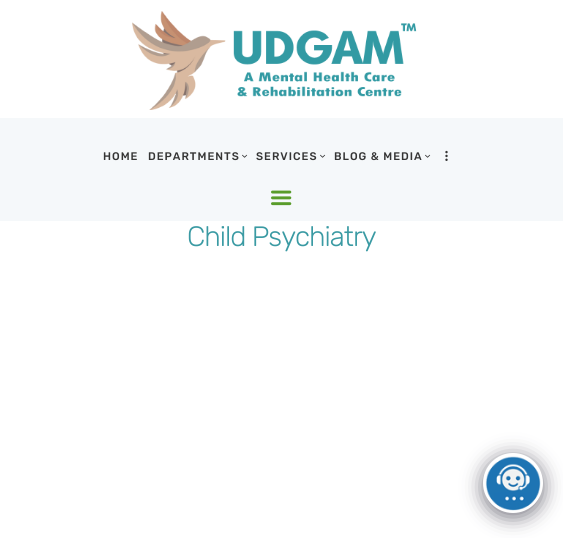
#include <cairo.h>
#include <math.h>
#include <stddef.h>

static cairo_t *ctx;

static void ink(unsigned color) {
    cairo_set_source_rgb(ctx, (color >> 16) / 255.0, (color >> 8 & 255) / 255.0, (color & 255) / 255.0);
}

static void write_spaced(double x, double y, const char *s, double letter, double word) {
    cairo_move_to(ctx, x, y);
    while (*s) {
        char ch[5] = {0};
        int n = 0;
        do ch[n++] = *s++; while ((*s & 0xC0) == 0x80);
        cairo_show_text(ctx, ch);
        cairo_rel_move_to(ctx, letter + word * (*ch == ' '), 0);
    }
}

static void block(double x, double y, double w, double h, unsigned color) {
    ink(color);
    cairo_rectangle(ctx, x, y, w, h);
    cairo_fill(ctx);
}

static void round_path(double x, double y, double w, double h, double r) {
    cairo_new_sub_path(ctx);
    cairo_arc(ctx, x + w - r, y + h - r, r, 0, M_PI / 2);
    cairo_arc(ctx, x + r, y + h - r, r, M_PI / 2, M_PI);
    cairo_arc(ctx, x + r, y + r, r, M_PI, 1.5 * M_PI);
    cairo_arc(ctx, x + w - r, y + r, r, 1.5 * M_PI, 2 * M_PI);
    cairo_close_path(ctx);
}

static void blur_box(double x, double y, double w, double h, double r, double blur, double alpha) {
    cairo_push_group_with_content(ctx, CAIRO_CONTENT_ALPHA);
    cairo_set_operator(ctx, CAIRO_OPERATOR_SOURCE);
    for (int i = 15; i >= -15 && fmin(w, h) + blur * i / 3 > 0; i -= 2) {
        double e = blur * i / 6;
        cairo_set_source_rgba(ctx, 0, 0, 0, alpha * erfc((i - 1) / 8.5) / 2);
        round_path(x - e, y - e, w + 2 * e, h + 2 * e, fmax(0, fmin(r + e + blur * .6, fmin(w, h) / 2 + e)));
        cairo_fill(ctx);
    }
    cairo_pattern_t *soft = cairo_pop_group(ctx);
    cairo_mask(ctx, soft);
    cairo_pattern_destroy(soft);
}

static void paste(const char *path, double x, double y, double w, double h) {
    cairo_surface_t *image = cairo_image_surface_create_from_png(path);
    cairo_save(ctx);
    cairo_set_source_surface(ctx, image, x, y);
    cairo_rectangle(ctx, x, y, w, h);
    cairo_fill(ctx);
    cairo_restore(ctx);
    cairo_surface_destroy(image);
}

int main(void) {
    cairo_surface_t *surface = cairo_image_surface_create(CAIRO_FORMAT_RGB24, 563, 538);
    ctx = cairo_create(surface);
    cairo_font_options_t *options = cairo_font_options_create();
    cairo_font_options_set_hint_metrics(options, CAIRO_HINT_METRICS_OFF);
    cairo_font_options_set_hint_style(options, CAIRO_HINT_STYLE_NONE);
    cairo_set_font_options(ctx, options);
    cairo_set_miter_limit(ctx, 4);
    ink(0xffffff);
    cairo_paint(ctx);
    paste("pic1.png", 132, 11, 285, 99);
    block(0, 118, 563, 103, 0xf5f8fa);
    cairo_select_font_face(ctx, "Rubik Medium", CAIRO_FONT_SLANT_NORMAL, CAIRO_FONT_WEIGHT_NORMAL);
    cairo_set_font_size(ctx, 11);
    ink(0x353535);
    write_spaced(103, 160, "HOME", 1, 0);
    write_spaced(148, 160, "DEPARTMENTS", 1, 0);
    paste("pic2.png", 242, 154, 6, 4);
    write_spaced(256, 160, "SERVICES", 1, 0);
    paste("pic2.png", 320, 154, 6, 4);
    write_spaced(334, 160, "BLOG & MEDIA", 1, 0);
    paste("pic2.png", 425, 154, 6, 4);
    paste("pic3.png", 445, 150, 3, 11);
    paste("pic4.png", 271, 190, 21, 16);
    cairo_select_font_face(ctx, "Rubik Light", CAIRO_FONT_SLANT_NORMAL, CAIRO_FONT_WEIGHT_NORMAL);
    cairo_set_font_size(ctx, 28);
    ink(0x3a9aa3);
    write_spaced(187, 246, "Child Psychiatry", -1, 0);
    ink(0x767580);
    blur_box(483, 457, 60, 60, 30, 10, 1);
    ink(0xffffff);
    cairo_arc(ctx, 513, 483, 30, 0, 2 * M_PI);
    cairo_fill(ctx);
    paste("pic5.png", 485, 456, 56, 55);
    cairo_surface_write_to_png(surface, "screenshot.png");
    cairo_font_options_destroy(options);
    cairo_destroy(ctx);
    cairo_surface_destroy(surface);
    return 0;
}
